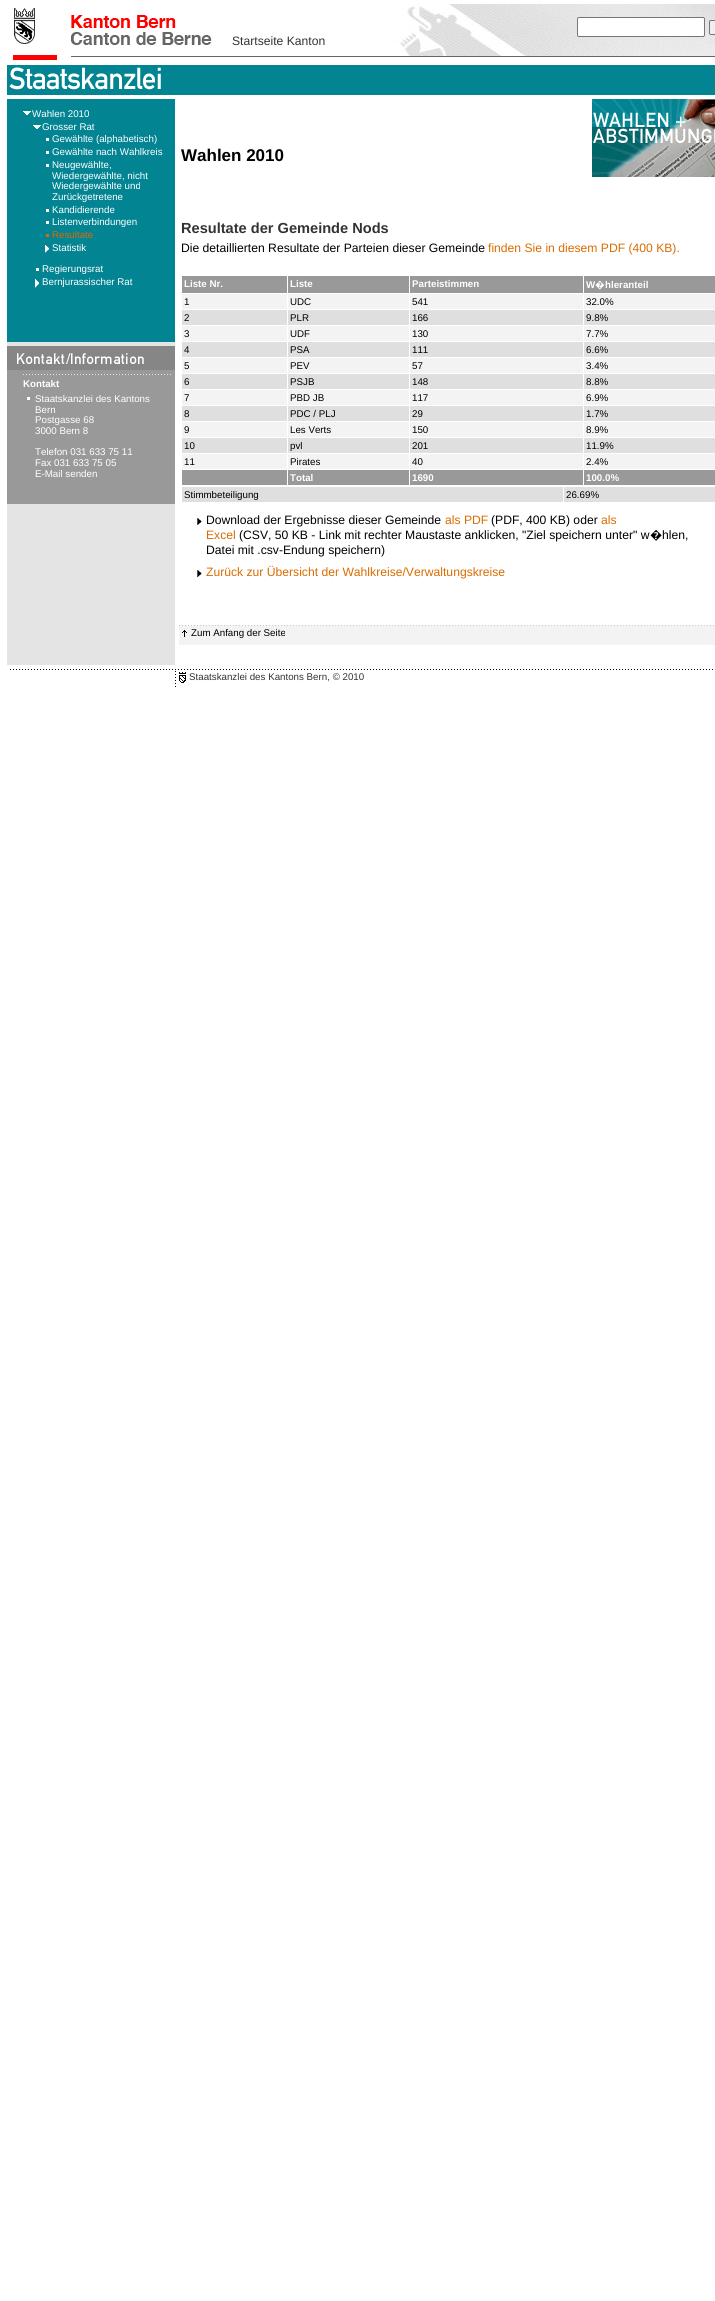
#include <cairo.h>
#include <math.h>
#include <stddef.h>

typedef struct { const char *family; double size; int italic, bold; unsigned color; } style_t;
static cairo_t *ctx;

static void ink(unsigned color) {
    cairo_set_source_rgb(ctx, (color >> 16) / 255.0, (color >> 8 & 255) / 255.0, (color & 255) / 255.0);
}

static void write(double x, double y, const char *s, const style_t *st) {
    cairo_select_font_face(ctx, st->family, st->italic ? CAIRO_FONT_SLANT_ITALIC : CAIRO_FONT_SLANT_NORMAL,
        st->bold ? CAIRO_FONT_WEIGHT_BOLD : CAIRO_FONT_WEIGHT_NORMAL);
    cairo_set_font_size(ctx, st->size);
    ink(st->color);
    cairo_move_to(ctx, x, y);
    cairo_show_text(ctx, s);
}

static void block(double x, double y, double w, double h, unsigned color) {
    ink(color);
    cairo_rectangle(ctx, x, y, w, h);
    cairo_fill(ctx);
}

static void round_path(double x, double y, double w, double h, double r) {
    cairo_new_sub_path(ctx);
    cairo_arc(ctx, x + w - r, y + h - r, r, 0, M_PI / 2);
    cairo_arc(ctx, x + r, y + h - r, r, M_PI / 2, M_PI);
    cairo_arc(ctx, x + r, y + r, r, M_PI, 1.5 * M_PI);
    cairo_arc(ctx, x + w - r, y + r, r, 1.5 * M_PI, 2 * M_PI);
    cairo_close_path(ctx);
}

static void paste(const char *path, double x, double y, double w, double h) {
    cairo_surface_t *image = cairo_image_surface_create_from_png(path);
    cairo_save(ctx);
    cairo_set_source_surface(ctx, image, x, y);
    cairo_rectangle(ctx, x, y, w, h);
    cairo_fill(ctx);
    cairo_restore(ctx);
    cairo_surface_destroy(image);
}

static const style_t s1 = {"Liberation Sans", 12.15, 0, 0, 0x333333};
static const style_t s2 = {"Liberation Sans", 9.75, 0, 0, 0xffffff};
static const style_t s3 = {"Liberation Sans", 9.75, 0, 0, 0xd96c00};
static const style_t s4 = {"Liberation Sans", 9.75, 0, 1, 0xffffff};
static const style_t s5 = {"Liberation Sans", 17, 0, 1, 0x000000};
static const style_t s6 = {"Liberation Sans", 14.6, 0, 1, 0x333333};
static const style_t s7 = {"Liberation Sans", 12.15, 0, 0, 0x000000};
static const style_t s8 = {"Liberation Sans", 12.15, 0, 0, 0xd96c00};
static const style_t s9 = {"Noto Sans", 9.75, 0, 1, 0xffffff};
static const style_t s10 = {"Liberation Sans", 9.75, 0, 0, 0x000000};
static const style_t s11 = {"Noto Sans", 12.15, 0, 0, 0x000000};
static const style_t s12 = {"Liberation Sans", 9.75, 0, 0, 0x333333};

int main(void) {
    cairo_surface_t *surface = cairo_image_surface_create(CAIRO_FORMAT_RGB24, 715, 2301);
    ctx = cairo_create(surface);
    cairo_font_options_t *options = cairo_font_options_create();
    cairo_font_options_set_hint_metrics(options, CAIRO_HINT_METRICS_OFF);
    cairo_font_options_set_hint_style(options, CAIRO_HINT_STYLE_NONE);
    cairo_set_font_options(ctx, options);
    cairo_set_miter_limit(ctx, 4);
    ink(0xffffff);
    cairo_paint(ctx);
    paste("pic1.png", 71, 4, 644, 53);
    paste("pic2.png", 13, 8, 44, 52);
    ink(0xffffff);
    round_path(577.5, 17.5, 127, 19, 1.5);
    cairo_fill_preserve(ctx);
    ink(0x767676);
    cairo_set_line_width(ctx, 1);
    cairo_stroke(ctx);
    ink(0xefefef);
    round_path(709.5, 20.5, 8, 14, 1.5);
    cairo_fill_preserve(ctx);
    ink(0x767676);
    cairo_stroke(ctx);
    paste("pic3.png", 71, 15, 141, 30);
    write(232, 45, "Startseite Kanton", &s1);
    block(7, 342, 168, 323, 0xe4e4e4);
    block(7, 65, 708, 30, 0x028493);
    paste("pic4.png", 9, 67, 152, 23);
    block(7, 99, 168, 243, 0x028493);
    paste("pic5.png", 23, 111, 8, 4);
    write(32, 117, "Wahlen 2010", &s2);
    paste("pic5.png", 33, 125, 8, 4);
    write(42, 130, "Grosser Rat", &s2);
    block(46, 138, 3, 3, 0xffffff);
    write(52, 142, "Gewählte (alphabetisch)", &s2);
    block(46, 151, 3, 3, 0xffffff);
    write(52, 155, "Gewählte nach Wahlkreis", &s2);
    block(46, 164, 3, 3, 0xffffff);
    write(52, 168, "Neugewählte,", &s2);
    write(52, 179, "Wiedergewählte, nicht", &s2);
    write(52, 189, "Wiedergewählte und", &s2);
    write(52, 200, "Zurückgetretene", &s2);
    block(46, 209, 3, 3, 0xffffff);
    write(52, 213, "Kandidierende", &s2);
    block(46, 221, 3, 3, 0xffffff);
    write(52, 225, "Listenverbindungen", &s2);
    block(46, 234, 3, 3, 0xd96c00);
    write(52, 238, "Resultate", &s3);
    paste("pic6.png", 45, 245, 4, 8);
    write(52, 251, "Statistik", &s2);
    block(36, 268, 3, 3, 0xffffff);
    write(42, 272, "Regierungsrat", &s2);
    paste("pic7.png", 35, 279, 4, 9);
    write(42, 285, "Bernjurassischer Rat", &s2);
    block(7, 370, 168, 134, 0x999999);
    paste("pic8.png", 7, 346, 168, 24);
    paste("pic9.png", 23, 374, 148, 1);
    write(23, 387, "Kontakt", &s4);
    block(27, 397, 3, 3, 0xffffff);
    write(35, 402, "Staatskanzlei des Kantons", &s2);
    write(35, 413, "Bern", &s2);
    write(35, 423, "Postgasse 68", &s2);
    write(35, 434, "3000 Bern 8", &s2);
    write(35, 455, "Telefon 031 633 75 11", &s2);
    write(35, 466, "Fax 031 633 75 05", &s2);
    write(35, 477, "E-Mail senden", &s2);
    paste("pic10.png", 592, 99, 123, 78);
    write(181, 161, "Wahlen 2010", &s5);
    write(181, 233, "Resultate der Gemeinde Nods", &s6);
    write(181, 252, "Die detaillierten Resultate der Parteien dieser Gemeinde", &s7);
    write(488, 252, "finden Sie in diesem PDF (400 KB).", &s8);
    block(182, 276, 105, 17, 0x999999);
    write(184, 287, "Liste Nr.", &s4);
    block(288, 276, 121, 17, 0x999999);
    write(290, 287, "Liste", &s4);
    block(410, 276, 173, 17, 0x999999);
    write(412, 287, "Parteistimmen", &s4);
    block(584, 276, 131, 17, 0x999999);
    write(586, 288, "W", &s4);
    write(595, 288, "�", &s9);
    write(605, 288, "hleranteil", &s4);
    block(182, 294, 533, 15, 0xf3f3f3);
    write(184, 305, "1", &s10);
    write(290, 305, "UDC", &s10);
    write(412, 305, "541", &s10);
    write(586, 305, "32.0%", &s10);
    block(182, 310, 533, 15, 0xdfdfdf);
    write(184, 321, "2", &s10);
    write(290, 321, "PLR", &s10);
    write(412, 321, "166", &s10);
    write(586, 321, "9.8%", &s10);
    block(182, 326, 533, 15, 0xf3f3f3);
    write(184, 337, "3", &s10);
    write(290, 337, "UDF", &s10);
    write(412, 337, "130", &s10);
    write(586, 337, "7.7%", &s10);
    block(182, 342, 533, 15, 0xdfdfdf);
    write(184, 353, "4", &s10);
    write(290, 353, "PSA", &s10);
    write(412, 353, "111", &s10);
    write(586, 353, "6.6%", &s10);
    block(182, 358, 533, 15, 0xf3f3f3);
    write(184, 369, "5", &s10);
    write(290, 369, "PEV", &s10);
    write(412, 369, "57", &s10);
    write(586, 369, "3.4%", &s10);
    block(182, 374, 533, 15, 0xdfdfdf);
    write(184, 385, "6", &s10);
    write(290, 385, "PSJB", &s10);
    write(412, 385, "148", &s10);
    write(586, 385, "8.8%", &s10);
    block(182, 390, 533, 15, 0xf3f3f3);
    write(184, 401, "7", &s10);
    write(290, 401, "PBD JB", &s10);
    write(412, 401, "117", &s10);
    write(586, 401, "6.9%", &s10);
    block(182, 406, 533, 15, 0xdfdfdf);
    write(184, 417, "8", &s10);
    write(290, 417, "PDC / PLJ", &s10);
    write(412, 417, "29", &s10);
    write(586, 417, "1.7%", &s10);
    block(182, 422, 533, 15, 0xf3f3f3);
    write(184, 433, "9", &s10);
    write(290, 433, "Les Verts", &s10);
    write(412, 433, "150", &s10);
    write(586, 433, "8.9%", &s10);
    block(182, 438, 533, 15, 0xdfdfdf);
    write(184, 449, "10", &s10);
    write(290, 449, "pvl", &s10);
    write(412, 449, "201", &s10);
    write(586, 449, "11.9%", &s10);
    block(182, 454, 533, 15, 0xf3f3f3);
    write(184, 465, "11", &s10);
    block(287, 293, 1, 177, 0xffffff);
    write(290, 465, "Pirates", &s10);
    block(409, 293, 1, 177, 0xffffff);
    write(412, 465, "40", &s10);
    block(583, 293, 1, 177, 0xffffff);
    write(586, 465, "2.4%", &s10);
    block(182, 470, 105, 15, 0x999999);
    block(288, 470, 121, 15, 0x999999);
    write(290, 481, "Total", &s4);
    block(410, 470, 173, 15, 0x999999);
    write(412, 481, "1690", &s4);
    block(584, 470, 131, 15, 0x999999);
    write(586, 481, "100.0%", &s4);
    block(182, 487, 533, 15, 0xdfdfdf);
    write(184, 498, "Stimmbeteiligung", &s10);
    block(563, 486, 1, 17, 0xffffff);
    write(566, 498, "26.69%", &s10);
    paste("pic11.png", 197, 518, 5, 7);
    write(206, 524, "Download der Ergebnisse dieser Gemeinde", &s7);
    write(445, 524, "als PDF", &s8);
    write(491, 524, "(PDF, 400 KB) oder", &s7);
    write(601, 524, "als", &s8);
    write(206, 539, "Excel", &s8);
    write(239, 539, "(CSV, 50 KB - Link mit rechter Maustaste anklicken, \"Ziel speichern unter\" w", &s7);
    write(650, 539, "�", &s11);
    write(662, 539, "hlen,", &s7);
    write(206, 554, "Datei mit .csv-Endung speichern)", &s7);
    paste("pic11.png", 197, 570, 5, 7);
    write(206, 576, "Zurück zur Übersicht der Wahlkreise/Verwaltungskreise", &s8);
    paste("pic12.png", 10, 669, 703, 1);
    block(179, 625, 536, 20, 0xf3f3f3);
    paste("pic13.png", 179, 625, 535, 1);
    paste("pic14.png", 182, 630, 5, 7);
    write(191, 636, "Zum Anfang der Seite", &s10);
    paste("pic15.png", 175, 671, 1, 16);
    paste("pic16.png", 179, 672, 7, 11);
    write(189, 680, "Staatskanzlei des Kantons Bern, © 2010", &s12);
    cairo_surface_write_to_png(surface, "screenshot.png");
    cairo_font_options_destroy(options);
    cairo_destroy(ctx);
    cairo_surface_destroy(surface);
    return 0;
}
